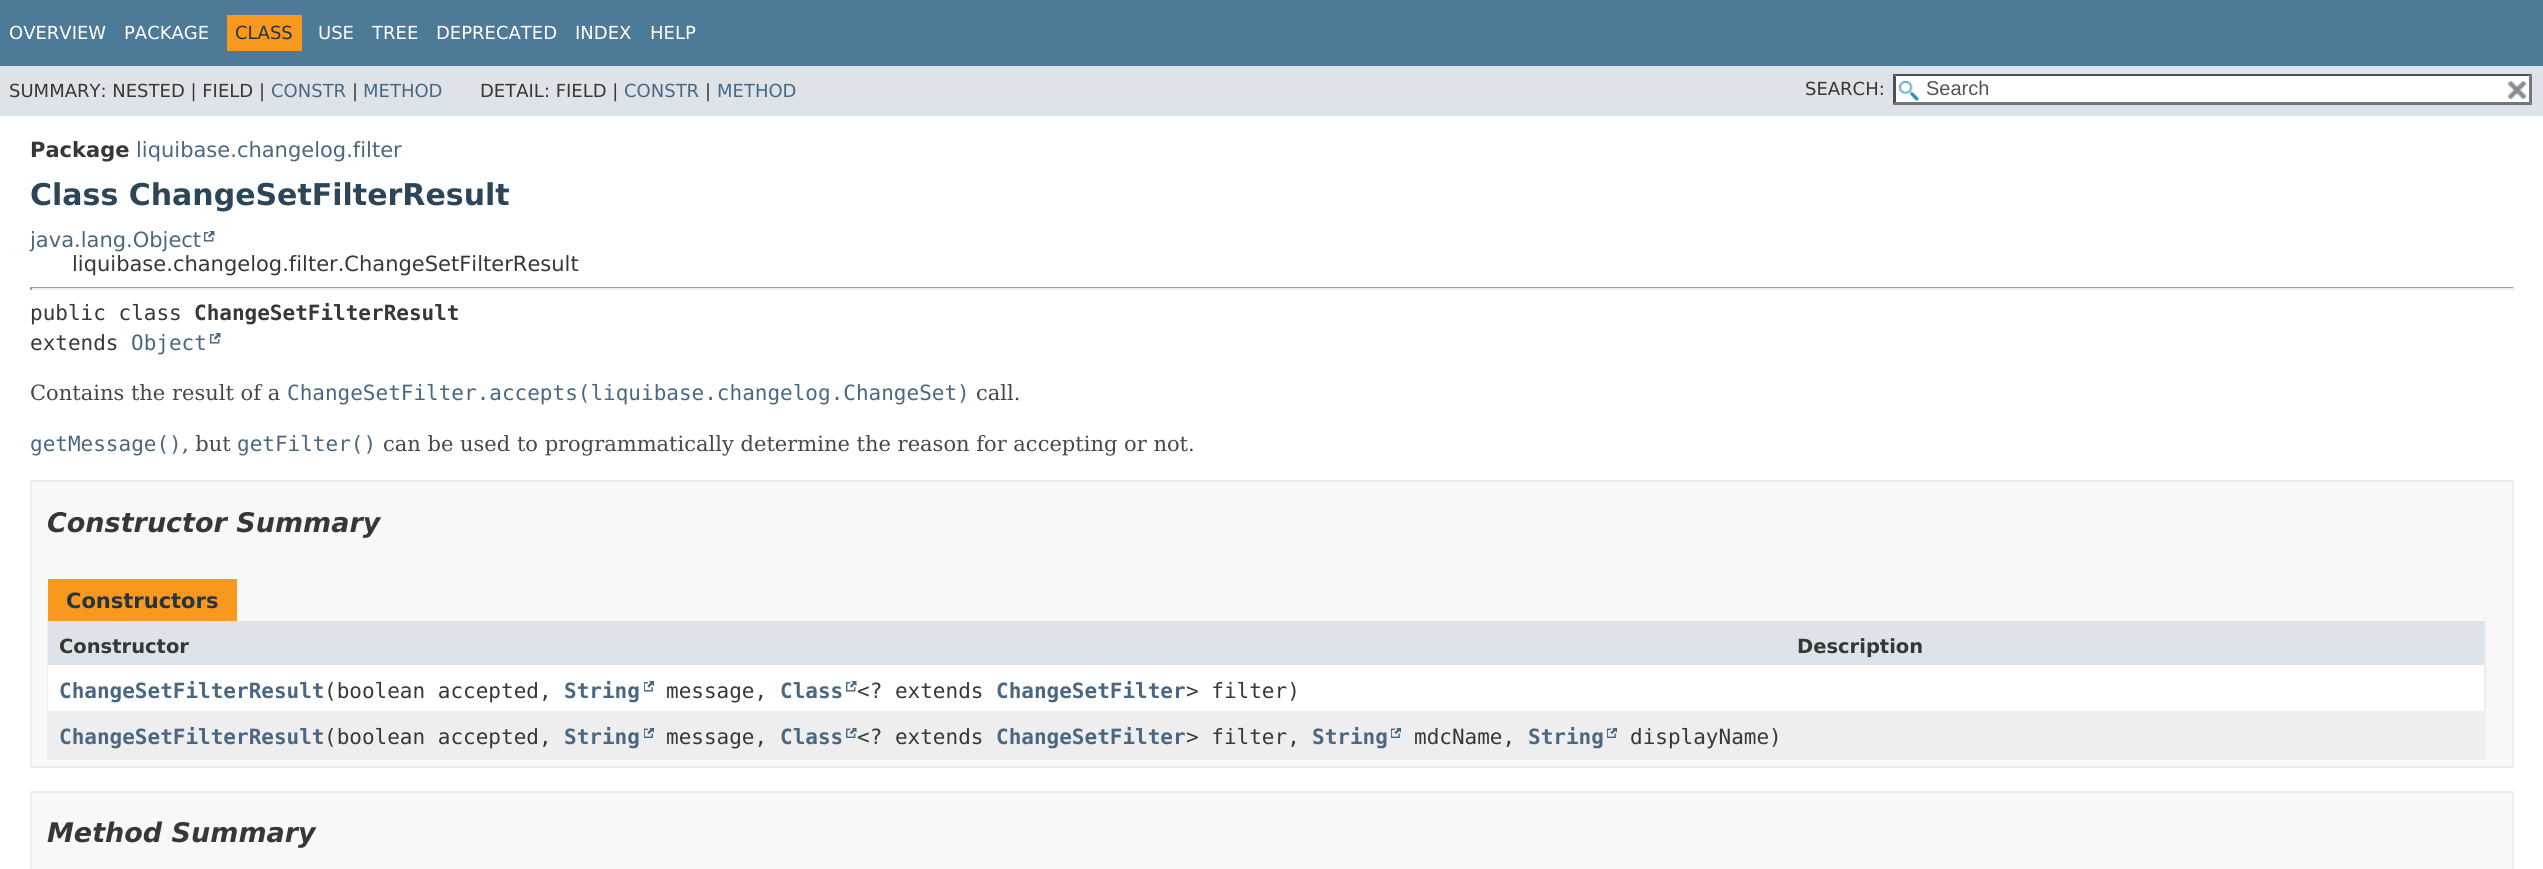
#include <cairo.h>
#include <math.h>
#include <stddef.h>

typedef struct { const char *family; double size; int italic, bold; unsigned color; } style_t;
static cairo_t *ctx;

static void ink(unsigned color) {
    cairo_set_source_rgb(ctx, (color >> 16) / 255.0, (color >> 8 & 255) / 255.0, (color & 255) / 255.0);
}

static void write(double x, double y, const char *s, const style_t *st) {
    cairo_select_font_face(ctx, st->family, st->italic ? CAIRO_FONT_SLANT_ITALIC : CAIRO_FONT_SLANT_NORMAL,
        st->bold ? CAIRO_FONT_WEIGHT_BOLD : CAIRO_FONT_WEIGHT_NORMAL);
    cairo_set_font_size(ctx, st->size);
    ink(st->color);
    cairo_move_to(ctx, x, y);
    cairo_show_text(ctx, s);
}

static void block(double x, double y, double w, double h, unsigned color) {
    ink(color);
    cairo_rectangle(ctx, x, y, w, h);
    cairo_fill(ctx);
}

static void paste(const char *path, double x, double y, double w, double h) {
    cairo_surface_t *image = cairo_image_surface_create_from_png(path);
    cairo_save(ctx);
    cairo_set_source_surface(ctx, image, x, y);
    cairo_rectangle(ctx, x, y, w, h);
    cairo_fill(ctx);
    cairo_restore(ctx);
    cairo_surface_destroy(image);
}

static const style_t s1 = {"DejaVu Sans", 18, 0, 0, 0xffffff};
static const style_t s2 = {"DejaVu Sans", 18, 0, 0, 0x253441};
static const style_t s3 = {"DejaVu Sans", 18, 0, 0, 0x353833};
static const style_t s4 = {"DejaVu Sans", 18, 0, 0, 0x4a6782};
static const style_t s5 = {"Liberation Sans", 20, 0, 0, 0x545454};
static const style_t s6 = {"DejaVu Sans", 21, 0, 1, 0x353833};
static const style_t s7 = {"DejaVu Sans", 21, 0, 0, 0x4a6782};
static const style_t s8 = {"DejaVu Sans", 30, 0, 1, 0x2c4557};
static const style_t s9 = {"DejaVu Sans", 21, 0, 0, 0x353833};
static const style_t s10 = {"DejaVu Sans Mono", 21, 0, 0, 0x353833};
static const style_t s11 = {"DejaVu Sans Mono", 21, 0, 1, 0x353833};
static const style_t s12 = {"DejaVu Sans Mono", 21, 0, 0, 0x4a6782};
static const style_t s13 = {"DejaVu Serif", 21, 0, 0, 0x474747};
static const style_t s14 = {"DejaVu Sans", 27, 1, 1, 0x353833};
static const style_t s15 = {"DejaVu Sans", 21, 0, 1, 0x253441};
static const style_t s16 = {"DejaVu Sans", 19.5, 0, 1, 0x353833};
static const style_t s17 = {"DejaVu Sans Mono", 21, 0, 1, 0x4a6782};

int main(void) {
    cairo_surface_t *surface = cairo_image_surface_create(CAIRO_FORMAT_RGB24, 2543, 869);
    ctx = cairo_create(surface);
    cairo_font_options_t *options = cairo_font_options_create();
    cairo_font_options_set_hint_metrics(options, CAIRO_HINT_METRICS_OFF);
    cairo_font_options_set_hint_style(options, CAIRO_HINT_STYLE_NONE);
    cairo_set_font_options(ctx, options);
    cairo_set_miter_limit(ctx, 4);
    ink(0xffffff);
    cairo_paint(ctx);
    block(0, 0, 2543, 66, 0x4d7a97);
    write(9, 39, "OVERVIEW", &s1);
    write(124, 39, "PACKAGE", &s1);
    block(227, 15, 75, 36, 0xf8981d);
    write(235, 39, "CLASS", &s2);
    write(318, 39, "USE", &s1);
    write(372, 39, "TREE", &s1);
    write(436, 39, "DEPRECATED", &s1);
    write(575, 39, "INDEX", &s1);
    write(650, 39, "HELP", &s1);
    block(0, 66, 2543, 50, 0xdee3e9);
    write(9, 97, "SUMMARY: NESTED | FIELD |", &s3);
    write(271, 97, "CONSTR", &s4);
    write(352, 97, "|", &s3);
    write(363, 97, "METHOD", &s4);
    write(480, 97, "DETAIL: FIELD |", &s3);
    write(624, 97, "CONSTR", &s4);
    write(705, 97, "|", &s3);
    write(717, 97, "METHOD", &s4);
    write(1805, 95, "SEARCH:", &s3);
    block(1893, 74, 639, 31, 0xffffff);
    paste("pic1.png", 1899, 81, 20, 20);
    ink(0x4f4f4f);
    cairo_new_path(ctx);
    cairo_move_to(ctx, 1893, 74);
    cairo_line_to(ctx, 2532, 74);
    cairo_line_to(ctx, 2529, 76);
    cairo_line_to(ctx, 1896, 76);
    cairo_close_path(ctx);
    cairo_fill(ctx);
    ink(0x767676);
    cairo_new_path(ctx);
    cairo_move_to(ctx, 2532, 73.5);
    cairo_line_to(ctx, 2532, 105);
    cairo_line_to(ctx, 2529, 102);
    cairo_line_to(ctx, 2529, 76.5);
    cairo_close_path(ctx);
    cairo_fill(ctx);
    cairo_new_path(ctx);
    cairo_move_to(ctx, 2532, 105);
    cairo_line_to(ctx, 1893, 105);
    cairo_line_to(ctx, 1896, 102);
    cairo_line_to(ctx, 2529, 102);
    cairo_close_path(ctx);
    cairo_fill(ctx);
    ink(0x4f4f4f);
    cairo_new_path(ctx);
    cairo_move_to(ctx, 1893, 105);
    cairo_line_to(ctx, 1893, 73.5);
    cairo_line_to(ctx, 1896, 76.5);
    cairo_line_to(ctx, 1896, 102);
    cairo_close_path(ctx);
    cairo_fill(ctx);
    write(1926, 95, "Search", &s5);
    paste("pic2.png", 2507, 81, 20, 19);
    write(30, 157, "Package", &s6);
    write(136, 157, "liquibase.changelog.filter", &s7);
    write(30, 205, "Class ChangeSetFilterResult", &s8);
    write(30, 247, "java.lang.Object", &s7);
    paste("pic3.png", 204, 231, 11, 11);
    write(72, 271, "liquibase.changelog.filter.ChangeSetFilterResult", &s9);
    block(30, 287, 2484, 1, 0x9f9f9f);
    block(2513, 287, 2, 3, 0xeeeeee);
    block(30, 288, 2484, 2, 0xeeeeee);
    block(30, 287, 2, 3, 0x9f9f9f);
    write(30, 320, "public class", &s10);
    write(194, 320, "ChangeSetFilterResult", &s11);
    write(30, 350, "extends", &s10);
    write(131, 350, "Object", &s12);
    paste("pic3.png", 210, 333, 11, 11);
    write(30, 400, "Contains the result of a", &s13);
    write(287, 400, "ChangeSetFilter.accepts(liquibase.changelog.ChangeSet)", &s12);
    write(976, 400, "call.", &s13);
    write(30, 451, "getMessage()", &s12);
    write(182, 451, ", but", &s13);
    write(237, 451, "getFilter()", &s12);
    write(383, 451, "can be used to programmatically determine the reason for accepting or not.", &s13);
    ink(0xf8f8f8);
    cairo_rectangle(ctx, 31, 481, 2482, 286);
    cairo_fill_preserve(ctx);
    ink(0xededed);
    cairo_stroke(ctx);
    write(47, 532, "Constructor Summary", &s14);
    block(48, 579, 189, 42, 0xf8981d);
    write(66, 608, "Constructors", &s15);
    block(2484, 621, 2, 138, 0xeeeeee);
    block(47, 758, 2439, 2, 0xeeeeee);
    block(47, 621, 2, 138, 0xeeeeee);
    block(48, 621, 2436, 44, 0xdee3e9);
    write(59, 653, "Constructor", &s16);
    write(1797, 653, "Description", &s16);
    block(48, 665, 2436, 46, 0xffffff);
    write(59, 698, "ChangeSetFilterResult", &s17);
    write(324, 698, "(boolean accepted,", &s10);
    write(564, 698, "String", &s17);
    paste("pic4.png", 644, 681, 10, 11);
    write(666, 698, "message,", &s10);
    write(780, 698, "Class", &s17);
    paste("pic3.png", 846, 681, 11, 11);
    write(857, 698, "<? extends", &s10);
    write(996, 698, "ChangeSetFilter", &s17);
    write(1186, 698, "> filter)", &s10);
    block(49, 711, 2435, 47, 0xeeeeef);
    write(59, 744, "ChangeSetFilterResult", &s17);
    write(324, 744, "(boolean accepted,", &s10);
    write(564, 744, "String", &s17);
    paste("pic5.png", 644, 728, 10, 10);
    write(666, 744, "message,", &s10);
    write(780, 744, "Class", &s17);
    paste("pic6.png", 846, 728, 11, 10);
    write(857, 744, "<? extends", &s10);
    write(996, 744, "ChangeSetFilter", &s17);
    write(1186, 744, "> filter,", &s10);
    write(1312, 744, "String", &s17);
    paste("pic5.png", 1391, 728, 10, 10);
    write(1414, 744, "mdcName,", &s10);
    write(1528, 744, "String", &s17);
    paste("pic5.png", 1607, 728, 10, 10);
    write(1630, 744, "displayName)", &s10);
    ink(0xf8f8f8);
    cairo_rectangle(ctx, 31, 792, 2482, 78);
    cairo_fill_preserve(ctx);
    ink(0xededed);
    cairo_stroke(ctx);
    write(47, 842, "Method Summary", &s14);
    cairo_surface_write_to_png(surface, "screenshot.png");
    cairo_font_options_destroy(options);
    cairo_destroy(ctx);
    cairo_surface_destroy(surface);
    return 0;
}
